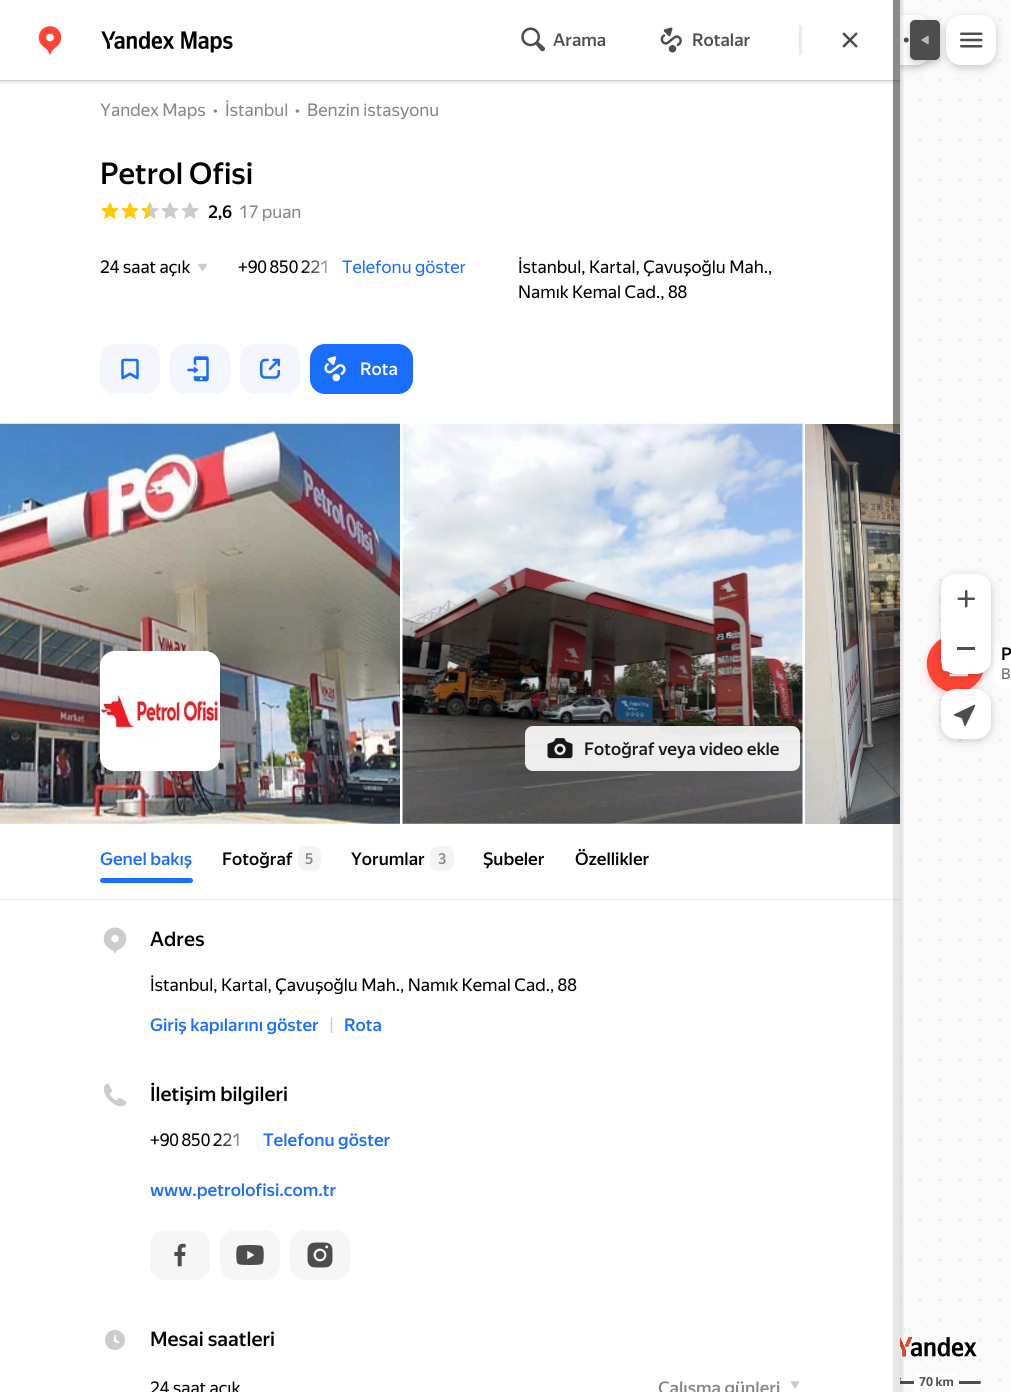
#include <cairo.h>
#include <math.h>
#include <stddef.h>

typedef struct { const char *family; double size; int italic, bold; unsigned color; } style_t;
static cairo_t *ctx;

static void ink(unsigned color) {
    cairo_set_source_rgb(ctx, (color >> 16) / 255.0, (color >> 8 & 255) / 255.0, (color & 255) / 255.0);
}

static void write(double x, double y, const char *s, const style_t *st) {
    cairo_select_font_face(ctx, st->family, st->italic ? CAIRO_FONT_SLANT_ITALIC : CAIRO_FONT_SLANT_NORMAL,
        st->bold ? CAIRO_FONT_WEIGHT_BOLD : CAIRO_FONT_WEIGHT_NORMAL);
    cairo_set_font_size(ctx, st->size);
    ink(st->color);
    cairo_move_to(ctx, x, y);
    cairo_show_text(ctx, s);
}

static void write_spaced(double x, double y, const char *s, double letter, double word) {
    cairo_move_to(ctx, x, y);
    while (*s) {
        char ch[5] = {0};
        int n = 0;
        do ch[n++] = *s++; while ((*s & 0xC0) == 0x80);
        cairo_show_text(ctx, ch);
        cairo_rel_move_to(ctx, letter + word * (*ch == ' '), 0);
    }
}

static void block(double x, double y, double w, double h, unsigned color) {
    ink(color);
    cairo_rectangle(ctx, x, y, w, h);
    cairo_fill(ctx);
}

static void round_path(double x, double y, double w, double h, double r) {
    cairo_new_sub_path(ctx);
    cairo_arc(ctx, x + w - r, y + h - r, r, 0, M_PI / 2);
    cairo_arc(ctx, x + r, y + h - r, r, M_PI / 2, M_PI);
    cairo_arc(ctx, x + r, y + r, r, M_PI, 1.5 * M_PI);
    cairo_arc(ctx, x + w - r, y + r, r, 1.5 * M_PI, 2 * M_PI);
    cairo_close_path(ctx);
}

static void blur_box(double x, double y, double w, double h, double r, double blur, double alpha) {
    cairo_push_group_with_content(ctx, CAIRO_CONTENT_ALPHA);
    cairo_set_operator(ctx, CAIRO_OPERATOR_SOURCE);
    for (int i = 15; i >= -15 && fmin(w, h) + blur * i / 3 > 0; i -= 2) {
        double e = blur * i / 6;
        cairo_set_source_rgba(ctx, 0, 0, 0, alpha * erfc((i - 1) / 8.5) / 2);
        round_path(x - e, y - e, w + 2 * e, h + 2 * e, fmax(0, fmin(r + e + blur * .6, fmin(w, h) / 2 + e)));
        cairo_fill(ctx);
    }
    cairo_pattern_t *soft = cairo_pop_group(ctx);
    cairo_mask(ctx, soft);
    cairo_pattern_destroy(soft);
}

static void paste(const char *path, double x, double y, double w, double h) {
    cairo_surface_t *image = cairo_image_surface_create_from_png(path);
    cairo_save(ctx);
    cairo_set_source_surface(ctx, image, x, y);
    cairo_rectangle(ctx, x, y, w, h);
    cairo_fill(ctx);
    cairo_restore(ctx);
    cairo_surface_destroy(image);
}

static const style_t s1 = {"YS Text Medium", 17.5, 0, 0, 0x4d4d4d};
static const style_t s2 = {"YS Text", 17.5, 0, 0, 0x878787};
static const style_t s3 = {"YS Text Medium", 30, 0, 0, 0x000000};
static const style_t s4 = {"YS Text Medium", 17.5, 0, 0, 0x000000};
static const style_t s5 = {"YS Text", 17.5, 0, 0, 0x000000};
static const style_t s6 = {"YS Text", 17.5, 0, 0, 0x196dff};
static const style_t s7 = {"YS Text Medium", 17.5, 0, 0, 0xffffff};
static const style_t s8 = {"YS Text Medium", 17.5, 0, 0, 0x181818};
static const style_t s9 = {"YS Text Medium", 17.5, 0, 0, 0x196dff};
static const style_t s10 = {"YS Text Medium", 15, 0, 0, 0x878787};
static const style_t s11 = {"YS Text Medium", 20, 0, 0, 0x000000};
static const style_t s12 = {"YS Text", 17.5, 0, 0, 0xcccccc};
static const style_t s13 = {"YS Text Medium", 17.5, 0, 0, 0x878787};
static const style_t s14 = {"YS Text", 12.5, 0, 1, 0x4d4d4d};
static const style_t s15 = {"YS Text", 15, 0, 0, 0x666666};

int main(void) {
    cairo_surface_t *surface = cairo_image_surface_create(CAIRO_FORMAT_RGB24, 1011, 1392);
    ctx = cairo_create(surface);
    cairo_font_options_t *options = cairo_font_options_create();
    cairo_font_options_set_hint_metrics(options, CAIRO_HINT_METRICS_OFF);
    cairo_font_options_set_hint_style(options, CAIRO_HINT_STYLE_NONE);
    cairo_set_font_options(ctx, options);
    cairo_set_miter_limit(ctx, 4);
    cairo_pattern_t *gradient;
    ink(0xffffff);
    cairo_paint(ctx);
    paste("pic1.png", 900, 0, 111, 1392);
    ink(0x000000);
    blur_box(881, 18, 50, 50, 15, 4, 0.2);
    ink(0xffffff);
    round_path(881, 15, 50, 50, 15);
    cairo_fill(ctx);
    paste("pic28.png", 903, 37, 6, 6);
    paste("pic32.png", 900, 1337, 77, 22);
    cairo_new_path(ctx);
    cairo_move_to(ctx, 886, 1373);
    cairo_line_to(ctx, 896, 1373);
    cairo_curve_to(ctx, 899, 1373, 901, 1375, 901, 1378);
    cairo_line_to(ctx, 901, 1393);
    cairo_line_to(ctx, 881, 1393);
    cairo_line_to(ctx, 881, 1378);
    cairo_curve_to(ctx, 881, 1375, 883, 1373, 886, 1373);
    cairo_close_path(ctx);
    cairo_fill(ctx);
    paste("pic33.png", 900, 1377, 1, 4);
    cairo_set_source_rgba(ctx, 1, 1, 1, 0.6);
    round_path(889, 1379, 95, 7, 3.5);
    cairo_fill(ctx);
    ink(0x4d4d4d);
    round_path(891, 1381, 90, 3, 1.5);
    cairo_fill(ctx);
    ink(0x000000);
    blur_box(3, 0, 900, 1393, 0, 1, 0.1);
    block(2, 81, 898, 1311, 0xffffff);
    block(0, 80, 900, 1, 0xebebeb);
    cairo_save(ctx);
    cairo_rectangle(ctx, 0, 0, 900, 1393);
    cairo_clip(ctx);
    ink(0x000000);
    blur_box(0, 76, 900, 5, 0, 2.5, 0.2);
    cairo_restore(ctx);
    ink(0x000000);
    blur_box(946, 18, 50, 50, 15, 4, 0.2);
    ink(0xffffff);
    round_path(946, 15, 50, 50, 15);
    cairo_fill(ctx);
    ink(0x000000);
    blur_box(910, 23, 30, 40, 5, 4, 0.2);
    block(0, 0, 900, 80, 0xffffff);
    paste("pic2.png", 38, 26, 24, 29);
    paste("pic3.png", 101, 31, 132, 22);
    paste("pic4.png", 521, 27, 24, 25);
    write(553, 46, "Arama", &s1);
    paste("pic5.png", 660, 27, 22, 26);
    write(692, 46, "Rotalar", &s1);
    block(799, 25, 3, 30, 0xebebeb);
    paste("pic6.png", 842, 32, 16, 16);
    write(100, 116, "Yandex Maps", &s2);
    write(213, 116, "•", &s2);
    write(225, 116, "İstanbul", &s2);
    write(295, 116, "•", &s2);
    write(307, 116, "Benzin istasyonu", &s2);
    write(100, 184, "Petrol Ofisi", &s3);
    paste("pic7.png", 101, 202, 18, 17);
    paste("pic7.png", 121, 202, 18, 17);
    paste("pic8.png", 141, 202, 18, 17);
    paste("pic9.png", 161, 202, 18, 17);
    paste("pic9.png", 181, 202, 18, 17);
    write(208, 218, "2,6", &s4);
    write(239, 218, "17 puan", &s2);
    write(100, 273, "24 saat açık", &s5);
    paste("pic10.png", 198, 263, 9, 9);
    write_spaced(238, 273, "+90 850 221", 0, -1);
    gradient = cairo_pattern_create_linear(301, 266, 341, 266);
    cairo_pattern_add_color_stop_rgba(gradient, 0, 1, 1, 1, 0);
    cairo_pattern_add_color_stop_rgba(gradient, 1, 1, 1, 1, 1);
    cairo_set_source(ctx, gradient);
    cairo_pattern_destroy(gradient);
    cairo_rectangle(ctx, 304, 260, 26, 13);
    cairo_fill(ctx);
    write(342, 273, "Telefonu göster", &s6);
    write(518, 273, "İstanbul, Kartal, Çavuşoğlu Mah.,", &s5);
    write(518, 298, "Namık Kemal Cad., 88", &s5);
    ink(0xf3f6fc);
    round_path(100, 344, 60, 50, 15);
    cairo_fill(ctx);
    paste("pic11.png", 121, 358, 18, 22);
    round_path(170, 344, 60, 50, 15);
    cairo_fill(ctx);
    paste("pic12.png", 187, 356, 22, 26);
    round_path(240, 344, 60, 50, 15);
    cairo_fill(ctx);
    paste("pic13.png", 260, 358, 20, 21);
    ink(0x196dff);
    round_path(310, 344, 103, 50, 15);
    cairo_fill(ctx);
    paste("pic14.png", 324, 356, 22, 26);
    write(360, 375, "Rota", &s7);
    paste("pic15.png", 0, 423, 400, 401);
    paste("pic16.png", 402, 423, 401, 401);
    paste("pic17.png", 805, 424, 95, 400);
    round_path(100, 651, 120, 120, 15);
    cairo_fill(ctx);
    paste("pic18.png", 100, 651, 120, 121);
    cairo_set_source_rgba(ctx, 1, 1, 1, 0.9);
    round_path(525, 726, 275, 45, 8);
    cairo_fill(ctx);
    paste("pic19.png", 547, 738, 26, 21);
    write(584, 755, "Fotoğraf veya video ekle", &s8);
    write(100, 865, "Genel bakış", &s9);
    write(222, 865, "Fotoğraf", &s4);
    ink(0xf4f4f4);
    round_path(298, 846, 23, 25, 8);
    cairo_fill(ctx);
    write(305, 864, "5", &s10);
    write(351, 865, "Yorumlar", &s4);
    ink(0xf4f4f4);
    round_path(430, 846, 24, 25, 8);
    cairo_fill(ctx);
    write(438, 864, "3", &s10);
    write(483, 865, "Şubeler", &s4);
    write(575, 865, "Özellikler", &s4);
    ink(0x196dff);
    round_path(100, 878, 93, 5, 2.5);
    cairo_fill(ctx);
    block(0, 899, 900, 1, 0xebebeb);
    paste("pic20.png", 103, 927, 24, 26);
    write(150, 946, "Adres", &s11);
    write(150, 991, "İstanbul, Kartal, Çavuşoğlu Mah., Namık Kemal Cad., 88", &s5);
    write(150, 1031, "Giriş kapılarını göster", &s9);
    write(329, 1031, "|", &s12);
    write(344, 1031, "Rota", &s9);
    paste("pic21.png", 103, 1083, 24, 24);
    write(150, 1101, "İletişim bilgileri", &s11);
    cairo_select_font_face(ctx, "YS Text", CAIRO_FONT_SLANT_NORMAL, CAIRO_FONT_WEIGHT_NORMAL);
    cairo_set_font_size(ctx, 17.5);
    write_spaced(150, 1146, "+90 850 221", 0, -1);
    gradient = cairo_pattern_create_linear(216, 1140, 256, 1140);
    cairo_pattern_add_color_stop_rgba(gradient, 0, 1, 1, 1, 0);
    cairo_pattern_add_color_stop_rgba(gradient, 1, 1, 1, 1, 1);
    cairo_set_source(ctx, gradient);
    cairo_pattern_destroy(gradient);
    cairo_rectangle(ctx, 217, 1133, 25, 13);
    cairo_fill(ctx);
    write(263, 1146, "Telefonu göster", &s9);
    write(150, 1196, "www.petrolofisi.com.tr", &s9);
    ink(0xf6f6f6);
    round_path(150, 1230, 60, 50, 15);
    cairo_fill(ctx);
    paste("pic22.png", 174, 1243, 12, 24);
    round_path(220, 1230, 60, 50, 15);
    cairo_fill(ctx);
    paste("pic23.png", 236, 1245, 28, 20);
    round_path(290, 1230, 60, 50, 15);
    cairo_fill(ctx);
    paste("pic24.png", 307, 1242, 26, 26);
    paste("pic25.png", 105, 1330, 20, 20);
    write(150, 1346, "Mesai saatleri", &s11);
    write(150, 1394, "24 saat açık", &s5);
    write(658, 1394, "Çalışma günleri", &s13);
    paste("pic26.png", 790, 1381, 10, 8);
    cairo_set_source_rgba(ctx, 0, 0, 0, 0.1);
    cairo_rectangle(ctx, 893, 0, 7, 1392);
    cairo_fill(ctx);
    cairo_set_source_rgba(ctx, 0, 0, 0, 0.4);
    cairo_rectangle(ctx, 893, 0, 7, 433);
    cairo_fill(ctx);
    ink(0x4d4d4d);
    round_path(910, 20, 30, 40, 5);
    cairo_fill(ctx);
    paste("pic27.png", 921, 35, 8, 10);
    paste("pic29.png", 960, 32, 23, 16);
    paste("pic34.png", 922, 637, 67, 61);
    paste("pic35.png", 941, 659, 28, 18);
    cairo_set_source_rgba(ctx, 1, 1, 1, 0.9);
    cairo_new_path(ctx);
    cairo_move_to(ctx, 1002, 640);
    cairo_line_to(ctx, 1011, 640);
    cairo_line_to(ctx, 1011, 688);
    cairo_line_to(ctx, 1002, 688);
    cairo_curve_to(ctx, 997.5, 688, 994, 684.5, 994, 680);
    cairo_line_to(ctx, 994, 648);
    cairo_curve_to(ctx, 994, 643.5, 997.5, 640, 1002, 640);
    cairo_close_path(ctx);
    cairo_fill(ctx);
    ink(0x000000);
    blur_box(941, 576, 50, 100, 15, 4, 0.2);
    ink(0xffffff);
    cairo_new_path(ctx);
    cairo_move_to(ctx, 956, 574);
    cairo_line_to(ctx, 976, 574);
    cairo_curve_to(ctx, 984.5, 574, 991, 580.5, 991, 589);
    cairo_line_to(ctx, 991, 624);
    cairo_line_to(ctx, 941, 624);
    cairo_line_to(ctx, 941, 589);
    cairo_curve_to(ctx, 941, 580.5, 947.5, 574, 956, 574);
    cairo_close_path(ctx);
    cairo_fill(ctx);
    paste("pic30.png", 957, 590, 18, 18);
    cairo_new_path(ctx);
    cairo_move_to(ctx, 941, 624);
    cairo_line_to(ctx, 991, 624);
    cairo_line_to(ctx, 991, 659);
    cairo_curve_to(ctx, 991, 667.5, 984.5, 674, 976, 674);
    cairo_line_to(ctx, 956, 674);
    cairo_curve_to(ctx, 947.5, 674, 941, 667.5, 941, 659);
    cairo_close_path(ctx);
    cairo_fill(ctx);
    block(957, 647, 18, 3, 0x4d4d4d);
    ink(0x000000);
    blur_box(941, 691, 50, 50, 15, 4, 0.2);
    ink(0xffffff);
    round_path(941, 689, 50, 50, 15);
    cairo_fill(ctx);
    paste("pic31.png", 953, 704, 23, 23);
    cairo_new_path(ctx);
    cairo_move_to(ctx, 919, 1373);
    cairo_line_to(ctx, 954, 1373);
    cairo_curve_to(ctx, 957, 1373, 959, 1375, 959, 1378);
    cairo_line_to(ctx, 959, 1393);
    cairo_line_to(ctx, 914, 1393);
    cairo_line_to(ctx, 914, 1378);
    cairo_curve_to(ctx, 914, 1375, 916, 1373, 919, 1373);
    cairo_close_path(ctx);
    cairo_fill(ctx);
    write(919, 1386, "70 km", &s14);
    write(1001, 660, "P", &s4);
    write(1001, 679, "B", &s15);
    cairo_surface_write_to_png(surface, "screenshot.png");
    cairo_font_options_destroy(options);
    cairo_destroy(ctx);
    cairo_surface_destroy(surface);
    return 0;
}
